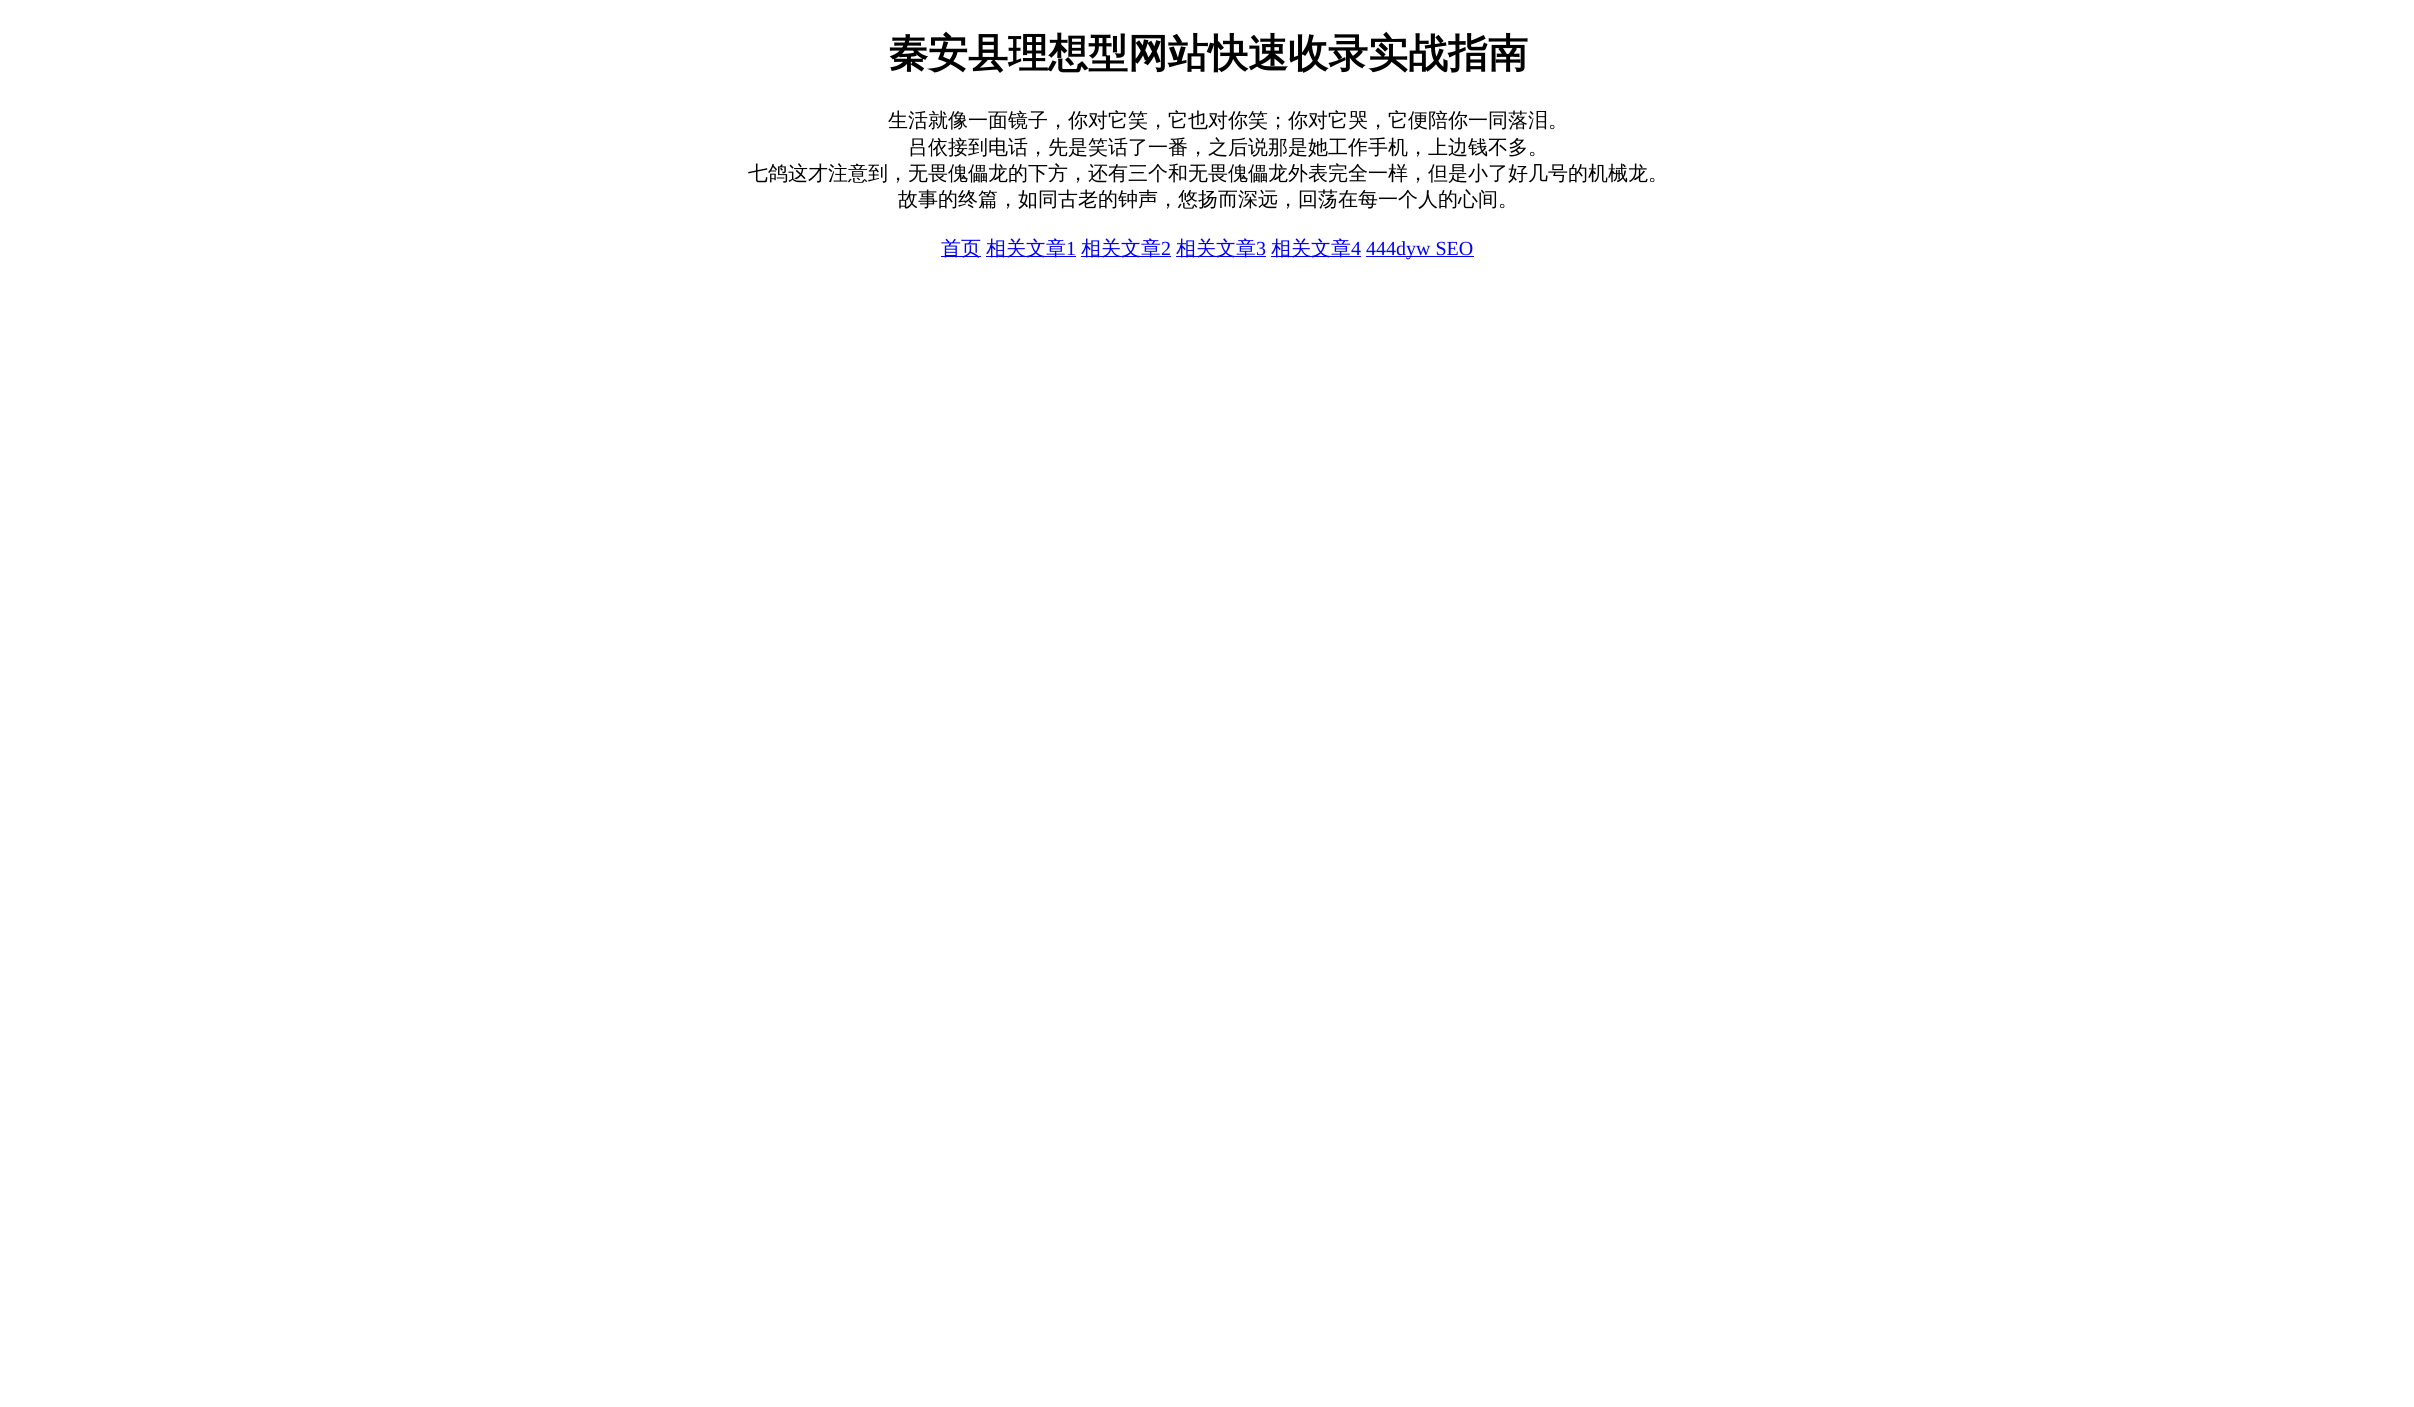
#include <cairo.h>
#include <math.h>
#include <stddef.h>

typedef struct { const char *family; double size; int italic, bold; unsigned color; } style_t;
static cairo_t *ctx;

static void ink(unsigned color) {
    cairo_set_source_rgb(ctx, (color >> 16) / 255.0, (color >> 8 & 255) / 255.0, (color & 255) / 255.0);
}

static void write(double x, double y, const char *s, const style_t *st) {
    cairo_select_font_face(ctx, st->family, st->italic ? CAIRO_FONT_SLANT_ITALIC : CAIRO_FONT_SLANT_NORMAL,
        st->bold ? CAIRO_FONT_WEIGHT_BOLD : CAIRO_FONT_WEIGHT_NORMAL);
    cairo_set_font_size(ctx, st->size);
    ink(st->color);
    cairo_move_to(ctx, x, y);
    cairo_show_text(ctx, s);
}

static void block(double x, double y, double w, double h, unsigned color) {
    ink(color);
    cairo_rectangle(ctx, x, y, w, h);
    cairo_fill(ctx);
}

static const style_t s1 = {"WenQuanYi Zen Hei", 40, 0, 1, 0x000000};
static const style_t s2 = {"WenQuanYi Zen Hei Medium", 20, 0, 0, 0x000000};
static const style_t s3 = {"WenQuanYi Zen Hei Medium", 20, 0, 0, 0x0000ee};
static const style_t s4 = {"Liberation Serif", 20, 0, 0, 0x0000ee};

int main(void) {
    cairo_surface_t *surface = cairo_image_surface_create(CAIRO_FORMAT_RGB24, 2414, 1407);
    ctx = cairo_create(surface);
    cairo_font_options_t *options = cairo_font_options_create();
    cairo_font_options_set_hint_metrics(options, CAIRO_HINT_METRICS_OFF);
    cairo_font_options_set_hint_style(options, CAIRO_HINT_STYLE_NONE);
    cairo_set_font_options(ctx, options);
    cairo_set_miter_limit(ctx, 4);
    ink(0xffffff);
    cairo_paint(ctx);
    write(888, 67, "秦安县理想型网站快速收录实战指南", &s1);
    write(888, 127, "生活就像一面镜子，你对它笑，它也对你笑；你对它哭，它便陪你一同落泪。", &s2);
    write(908, 154, "吕依接到电话，先是笑话了一番，之后说那是她工作手机，上边钱不多。", &s2);
    write(748, 180, "七鸽这才注意到，无畏傀儡龙的下方，还有三个和无畏傀儡龙外表完全一样，但是小了好几号的机械龙。", &s2);
    write(898, 206, "故事的终篇，如同古老的钟声，悠扬而深远，回荡在每一个人的心间。", &s2);
    block(941, 256, 40, 1, 0x0000ee);
    write(941, 255, "首页", &s3);
    block(986, 256, 90, 1, 0x0000ee);
    write(986, 255, "相关文章", &s3);
    write(1066, 255, "1", &s4);
    block(1081, 256, 90, 1, 0x0000ee);
    write(1081, 255, "相关文章", &s3);
    write(1161, 255, "2", &s4);
    block(1176, 256, 90, 1, 0x0000ee);
    write(1176, 255, "相关文章", &s3);
    write(1256, 255, "3", &s4);
    block(1271, 256, 90, 1, 0x0000ee);
    write(1271, 255, "相关文章", &s3);
    write(1351, 255, "4", &s4);
    block(1366, 256, 108, 1, 0x0000ee);
    write(1366, 255, "444dyw SEO", &s4);
    cairo_surface_write_to_png(surface, "screenshot.png");
    cairo_font_options_destroy(options);
    cairo_destroy(ctx);
    cairo_surface_destroy(surface);
    return 0;
}
